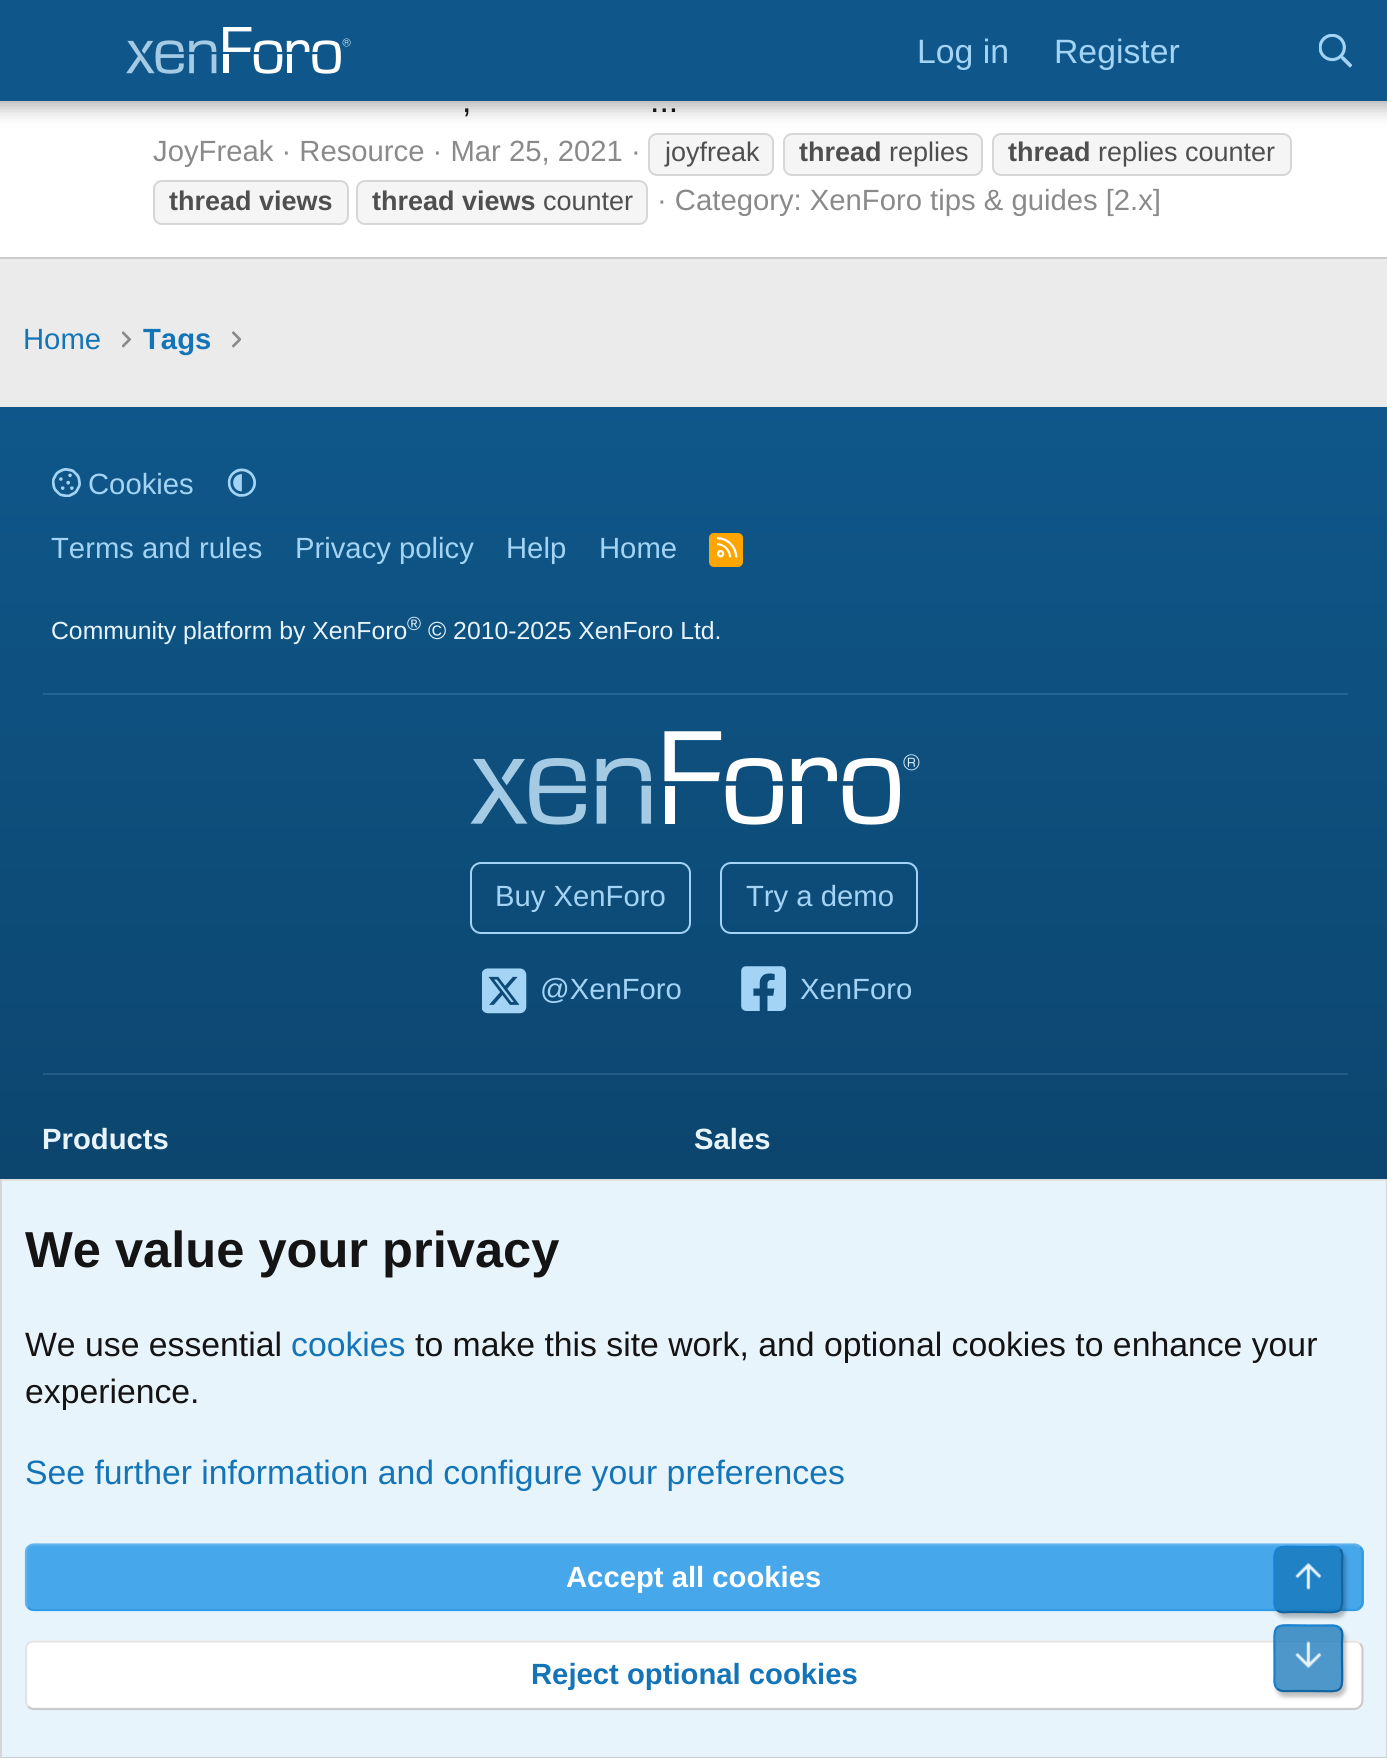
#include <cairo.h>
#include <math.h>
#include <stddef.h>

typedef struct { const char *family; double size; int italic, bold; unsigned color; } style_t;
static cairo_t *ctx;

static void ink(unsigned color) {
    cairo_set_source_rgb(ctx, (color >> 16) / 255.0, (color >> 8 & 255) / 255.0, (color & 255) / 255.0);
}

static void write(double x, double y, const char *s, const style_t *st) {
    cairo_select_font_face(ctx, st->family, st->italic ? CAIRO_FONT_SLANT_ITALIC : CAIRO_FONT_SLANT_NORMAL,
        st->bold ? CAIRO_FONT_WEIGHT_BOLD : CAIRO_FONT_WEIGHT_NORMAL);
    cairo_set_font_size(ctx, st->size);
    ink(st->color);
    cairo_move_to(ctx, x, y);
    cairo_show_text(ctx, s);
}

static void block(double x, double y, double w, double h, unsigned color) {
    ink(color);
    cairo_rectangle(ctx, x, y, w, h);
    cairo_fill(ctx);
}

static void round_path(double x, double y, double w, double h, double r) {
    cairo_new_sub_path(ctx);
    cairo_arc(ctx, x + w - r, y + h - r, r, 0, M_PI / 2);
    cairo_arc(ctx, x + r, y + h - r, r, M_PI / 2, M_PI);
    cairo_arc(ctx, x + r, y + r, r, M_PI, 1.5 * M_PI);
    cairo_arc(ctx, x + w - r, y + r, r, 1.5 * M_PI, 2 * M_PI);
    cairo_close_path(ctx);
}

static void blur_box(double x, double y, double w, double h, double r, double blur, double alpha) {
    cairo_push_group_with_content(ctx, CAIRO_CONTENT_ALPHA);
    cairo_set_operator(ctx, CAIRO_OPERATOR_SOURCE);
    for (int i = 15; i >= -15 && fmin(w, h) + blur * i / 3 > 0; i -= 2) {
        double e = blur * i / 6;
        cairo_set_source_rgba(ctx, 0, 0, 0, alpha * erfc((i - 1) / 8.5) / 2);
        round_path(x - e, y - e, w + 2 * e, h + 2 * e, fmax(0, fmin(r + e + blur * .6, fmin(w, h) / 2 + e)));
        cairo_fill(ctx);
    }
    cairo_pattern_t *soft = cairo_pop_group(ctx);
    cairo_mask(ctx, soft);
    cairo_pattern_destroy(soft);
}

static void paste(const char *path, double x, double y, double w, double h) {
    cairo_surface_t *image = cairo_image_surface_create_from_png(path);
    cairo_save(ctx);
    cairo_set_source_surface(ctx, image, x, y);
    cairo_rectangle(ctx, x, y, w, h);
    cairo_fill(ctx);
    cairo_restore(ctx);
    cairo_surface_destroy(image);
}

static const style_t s1 = {"Liberation Sans", 33.75, 0, 0, 0xa3d4f5};
static const style_t s2 = {"Liberation Sans", 33.75, 0, 0, 0x141414};
static const style_t s3 = {"Liberation Sans", 29.25, 0, 0, 0x8a8a8a};
static const style_t s4 = {"Liberation Sans", 27, 0, 0, 0x4f4f4f};
static const style_t s5 = {"Liberation Sans", 27, 0, 1, 0x4f4f4f};
static const style_t s6 = {"Liberation Sans", 29.25, 0, 0, 0x1474b8};
static const style_t s7 = {"Liberation Sans", 29.25, 0, 1, 0x1474b8};
static const style_t s8 = {"Liberation Sans", 29.25, 0, 0, 0xa3d4f5};
static const style_t s9 = {"Liberation Sans", 24.75, 0, 0, 0xe8f4fc};
static const style_t s10 = {"Liberation Sans", 19, 0, 0, 0xe8f4fc};
static const style_t s11 = {"Liberation Sans", 29.25, 0, 1, 0xe8f4fc};
static const style_t s12 = {"Liberation Sans", 50.6, 0, 1, 0x141414};
static const style_t s13 = {"Liberation Sans", 33.75, 0, 0, 0x1474b8};
static const style_t s14 = {"Liberation Sans", 29.25, 0, 1, 0xffffff};

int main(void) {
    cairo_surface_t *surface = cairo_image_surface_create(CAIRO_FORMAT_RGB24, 1387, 1758);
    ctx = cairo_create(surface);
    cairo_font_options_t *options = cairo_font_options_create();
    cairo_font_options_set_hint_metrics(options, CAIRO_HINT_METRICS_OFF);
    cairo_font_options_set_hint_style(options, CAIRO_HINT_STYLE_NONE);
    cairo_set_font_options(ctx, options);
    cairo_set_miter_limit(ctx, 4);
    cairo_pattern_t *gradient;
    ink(0xebebeb);
    cairo_paint(ctx);
    block(0, 101, 1387, 156, 0xffffff);
    ink(0xf5f5f5);
    round_path(649, 134, 124, 41, 8);
    cairo_fill_preserve(ctx);
    ink(0xd6d6d6);
    cairo_stroke(ctx);
    ink(0xf5f5f5);
    round_path(784, 134, 198, 41, 8);
    cairo_fill_preserve(ctx);
    ink(0xd6d6d6);
    cairo_stroke(ctx);
    ink(0xf5f5f5);
    round_path(993, 134, 298, 41, 8);
    cairo_fill_preserve(ctx);
    ink(0xd6d6d6);
    cairo_stroke(ctx);
    ink(0x000000);
    blur_box(-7, -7, 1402, 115, 0, 9, 0.3);
    block(0, 0, 1387, 101, 0x0f578a);
    paste("pic1.png", 126, 27, 225, 47);
    write(917, 63, "Log in", &s1);
    write(1054, 63, "Register", &s1);
    paste("pic2.png", 1319, 34, 33, 34);
    block(0, 257, 1387, 2, 0xcccccc);
    write(462, 112, ",", &s2);
    write(650, 112, "...", &s2);
    write(153, 161, "JoyFreak · Resource · Mar 25, 2021 ·", &s3);
    write(665, 161, "joyfreak", &s4);
    write(799, 161, "thread", &s5);
    write(889, 161, "replies", &s4);
    write(1008, 161, "thread", &s5);
    write(1098, 161, "replies counter", &s4);
    ink(0xf5f5f5);
    round_path(154, 181, 194, 43, 8);
    cairo_fill_preserve(ctx);
    ink(0xd6d6d6);
    cairo_stroke(ctx);
    write(169, 210, "thread views", &s5);
    ink(0xf5f5f5);
    round_path(357, 181, 290, 43, 8);
    cairo_fill_preserve(ctx);
    ink(0xd6d6d6);
    cairo_stroke(ctx);
    write(372, 210, "thread views", &s5);
    write(543, 210, "counter", &s4);
    write(657, 210, "· Category: XenForo tips & guides [2.x]", &s3);
    write(23, 349, "Home", &s6);
    paste("pic3.png", 122, 331, 9, 17);
    write(143, 349, "Tags", &s7);
    paste("pic4.png", 232, 331, 9, 17);
    gradient = cairo_pattern_create_linear(694, 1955, 694, 407);
    cairo_pattern_add_color_stop_rgba(gradient, 0, 0.035, 0.204, 0.325, 1);
    cairo_pattern_add_color_stop_rgba(gradient, 1, 0.059, 0.341, 0.541, 1);
    cairo_set_source(ctx, gradient);
    cairo_pattern_destroy(gradient);
    cairo_rectangle(ctx, 0, 407, 1387, 772);
    cairo_fill(ctx);
    paste("pic5.png", 52, 468, 29, 29);
    write(88, 494, "Cookies", &s8);
    paste("pic6.png", 227, 468, 29, 29);
    write(51, 558, "Terms and rules", &s8);
    write(295, 558, "Privacy policy", &s8);
    write(506, 558, "Help", &s8);
    write(599, 558, "Home", &s8);
    ink(0xffa500);
    round_path(709, 533, 34, 34, 5);
    cairo_fill(ctx);
    paste("pic7.png", 717, 537, 21, 21);
    block(43, 693, 1305, 2, 0x246492);
    write(51, 639, "Community platform by XenForo", &s9);
    write(407, 630, "®", &s10);
    write(428, 639, "© 2010-2025 XenForo Ltd.", &s9);
    block(43, 1073, 1305, 2, 0x235d86);
    paste("pic8.png", 470, 731, 450, 94);
    round_path(471, 863, 219, 70, 10);
    ink(0xa3d4f5);
    cairo_stroke(ctx);
    write(495, 906, "Buy XenForo", &s8);
    round_path(721, 863, 196, 70, 10);
    cairo_stroke(ctx);
    write(746, 906, "Try a demo", &s8);
    paste("pic9.png", 482, 968, 45, 46);
    write(540, 999, "@XenForo", &s8);
    paste("pic10.png", 741, 966, 45, 45);
    write(800, 999, "XenForo", &s8);
    write(42, 1149, "Products", &s11);
    write(694, 1149, "Sales", &s11);
    block(2, 1181, 1384, 576, 0xe8f4fc);
    block(0, 1179, 1387, 2, 0xe0e0e0);
    block(1386, 1179, 1, 579, 0xd6d6d6);
    block(0, 1757, 1387, 1, 0xcccccc);
    block(0, 1179, 2, 579, 0xd6d6d6);
    write(25, 1267, "We value your privacy", &s12);
    write(25, 1356, "We use essential", &s2);
    write(291, 1356, "cookies", &s13);
    write(415, 1356, "to make this site work, and optional cookies to enhance your", &s2);
    write(25, 1403, "experience.", &s2);
    write(25, 1484, "See further information and configure your preferences", &s13);
    ink(0x47a7eb);
    round_path(25, 1544, 1339, 67, 9);
    cairo_fill(ctx);
    cairo_new_path(ctx);
    cairo_move_to(ctx, 1360, 1547);
    cairo_curve_to(ctx, 1361.5, 1548.5, 1362.5, 1550.5, 1362.5, 1552.5);
    cairo_line_to(ctx, 1362.5, 1602);
    cairo_curve_to(ctx, 1362.5, 1604, 1361.5, 1606, 1360, 1607.5);
    cairo_curve_to(ctx, 1358.5, 1609, 1356.5, 1610, 1354.5, 1610);
    cairo_line_to(ctx, 34, 1610);
    cairo_curve_to(ctx, 31.5, 1610, 29.5, 1609, 28, 1607.5);
    ink(0x309ce8);
    cairo_set_line_width(ctx, 2.2);
    cairo_stroke(ctx);
    cairo_new_path(ctx);
    cairo_move_to(ctx, 28, 1607.5);
    cairo_curve_to(ctx, 26.5, 1606, 26, 1604, 26, 1602);
    cairo_line_to(ctx, 26, 1552.5);
    cairo_curve_to(ctx, 26, 1550.5, 26.5, 1548.5, 28, 1547);
    cairo_curve_to(ctx, 29.5, 1545.5, 31.5, 1544.5, 34, 1544.5);
    cairo_line_to(ctx, 1354.5, 1544.5);
    cairo_curve_to(ctx, 1356.5, 1544.5, 1358.5, 1545.5, 1360, 1547);
    ink(0x5eb2ed);
    cairo_stroke(ctx);
    write(566, 1587, "Accept all cookies", &s14);
    round_path(25, 1640, 1339, 70, 9);
    cairo_fill(ctx);
    cairo_new_path(ctx);
    cairo_move_to(ctx, 1360, 1643.5);
    cairo_curve_to(ctx, 1361.5, 1645, 1362.5, 1647, 1362.5, 1649);
    cairo_line_to(ctx, 1362.5, 1701);
    cairo_curve_to(ctx, 1362.5, 1703, 1361.5, 1705, 1360, 1706.5);
    cairo_curve_to(ctx, 1358.5, 1708, 1356.5, 1709, 1354.5, 1709);
    cairo_line_to(ctx, 34, 1709);
    cairo_curve_to(ctx, 31.5, 1709, 29.5, 1708, 28, 1706.5);
    ink(0xc9c9c9);
    cairo_stroke(ctx);
    cairo_new_path(ctx);
    cairo_move_to(ctx, 28, 1706.5);
    cairo_curve_to(ctx, 26.5, 1705, 26, 1703, 26, 1701);
    cairo_line_to(ctx, 26, 1649);
    cairo_curve_to(ctx, 26, 1647, 26.5, 1645, 28, 1643.5);
    cairo_curve_to(ctx, 29.5, 1642, 31.5, 1641.5, 34, 1641.5);
    cairo_line_to(ctx, 1354.5, 1641.5);
    cairo_curve_to(ctx, 1356.5, 1641.5, 1358.5, 1642, 1360, 1643.5);
    ink(0xe3e3e3);
    cairo_stroke(ctx);
    write(531, 1684, "Reject optional cookies", &s7);
    cairo_save(ctx);
    cairo_set_fill_rule(ctx, CAIRO_FILL_RULE_EVEN_ODD);
    cairo_new_path(ctx);
    cairo_move_to(ctx, 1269, 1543);
    cairo_line_to(ctx, 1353, 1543);
    cairo_line_to(ctx, 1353, 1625);
    cairo_line_to(ctx, 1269, 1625);
    cairo_close_path(ctx);
    cairo_move_to(ctx, 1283, 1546);
    cairo_line_to(ctx, 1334, 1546);
    cairo_curve_to(ctx, 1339, 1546, 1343, 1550, 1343, 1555);
    cairo_line_to(ctx, 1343, 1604);
    cairo_curve_to(ctx, 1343, 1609, 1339, 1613, 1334, 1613);
    cairo_line_to(ctx, 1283, 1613);
    cairo_curve_to(ctx, 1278, 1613, 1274, 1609, 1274, 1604);
    cairo_line_to(ctx, 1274, 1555);
    cairo_curve_to(ctx, 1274, 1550, 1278, 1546, 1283, 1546);
    cairo_close_path(ctx);
    cairo_clip(ctx);
    ink(0x000000);
    blur_box(1276, 1550, 70, 68, 9, 2, 0.25);
    cairo_restore(ctx);
    cairo_set_source_rgba(ctx, 0.078, 0.455, 0.722, 0.75);
    round_path(1274, 1546, 69, 67, 9);
    cairo_fill(ctx);
    cairo_new_path(ctx);
    cairo_move_to(ctx, 1340, 1549);
    cairo_curve_to(ctx, 1343.5, 1552.5, 1342, 1558.5, 1342, 1563);
    cairo_line_to(ctx, 1342, 1579.5);
    cairo_curve_to(ctx, 1342, 1617.5, 1347, 1612, 1308.5, 1612);
    cairo_line_to(ctx, 1291, 1612);
    cairo_curve_to(ctx, 1287, 1612, 1280.5, 1613.5, 1277, 1610);
    ink(0x1265a1);
    cairo_stroke(ctx);
    cairo_new_path(ctx);
    cairo_move_to(ctx, 1277, 1610);
    cairo_curve_to(ctx, 1273.5, 1606.5, 1274.5, 1600.5, 1274.5, 1596);
    cairo_line_to(ctx, 1274.5, 1579.5);
    cairo_curve_to(ctx, 1274.5, 1541.5, 1270, 1547, 1308.5, 1547);
    cairo_line_to(ctx, 1325.5, 1547);
    cairo_curve_to(ctx, 1330, 1547, 1336, 1545.5, 1340, 1549);
    ink(0x1782cf);
    cairo_stroke(ctx);
    paste("pic11.png", 1295, 1562, 27, 28);
    cairo_save(ctx);
    cairo_set_fill_rule(ctx, CAIRO_FILL_RULE_EVEN_ODD);
    cairo_new_path(ctx);
    cairo_move_to(ctx, 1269, 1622);
    cairo_line_to(ctx, 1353, 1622);
    cairo_line_to(ctx, 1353, 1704);
    cairo_line_to(ctx, 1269, 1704);
    cairo_close_path(ctx);
    cairo_move_to(ctx, 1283, 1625);
    cairo_line_to(ctx, 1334, 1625);
    cairo_curve_to(ctx, 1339, 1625, 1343, 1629, 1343, 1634);
    cairo_line_to(ctx, 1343, 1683);
    cairo_curve_to(ctx, 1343, 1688, 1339, 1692, 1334, 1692);
    cairo_line_to(ctx, 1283, 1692);
    cairo_curve_to(ctx, 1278, 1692, 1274, 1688, 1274, 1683);
    cairo_line_to(ctx, 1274, 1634);
    cairo_curve_to(ctx, 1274, 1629, 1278, 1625, 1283, 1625);
    cairo_close_path(ctx);
    cairo_clip(ctx);
    ink(0x000000);
    blur_box(1276, 1629, 70, 68, 9, 2, 0.25);
    cairo_restore(ctx);
    cairo_set_source_rgba(ctx, 0.078, 0.455, 0.722, 0.75);
    round_path(1274, 1625, 69, 67, 9);
    cairo_fill(ctx);
    cairo_new_path(ctx);
    cairo_move_to(ctx, 1340, 1628);
    cairo_curve_to(ctx, 1343.5, 1631.5, 1342, 1637.5, 1342, 1642);
    cairo_line_to(ctx, 1342, 1658);
    cairo_curve_to(ctx, 1342, 1696.5, 1347, 1691, 1308.5, 1691);
    cairo_line_to(ctx, 1291, 1691);
    cairo_curve_to(ctx, 1287, 1691, 1280.5, 1692, 1277, 1688.5);
    ink(0x1265a1);
    cairo_stroke(ctx);
    cairo_new_path(ctx);
    cairo_move_to(ctx, 1277, 1688.5);
    cairo_curve_to(ctx, 1273.5, 1685, 1274.5, 1679, 1274.5, 1675);
    cairo_line_to(ctx, 1274.5, 1658);
    cairo_curve_to(ctx, 1274.5, 1620, 1270, 1625.5, 1308.5, 1625.5);
    cairo_line_to(ctx, 1325.5, 1625.5);
    cairo_curve_to(ctx, 1330, 1625.5, 1336, 1624.5, 1340, 1628);
    ink(0x1782cf);
    cairo_stroke(ctx);
    paste("pic12.png", 1295, 1641, 27, 28);
    cairo_surface_write_to_png(surface, "screenshot.png");
    cairo_font_options_destroy(options);
    cairo_destroy(ctx);
    cairo_surface_destroy(surface);
    return 0;
}
